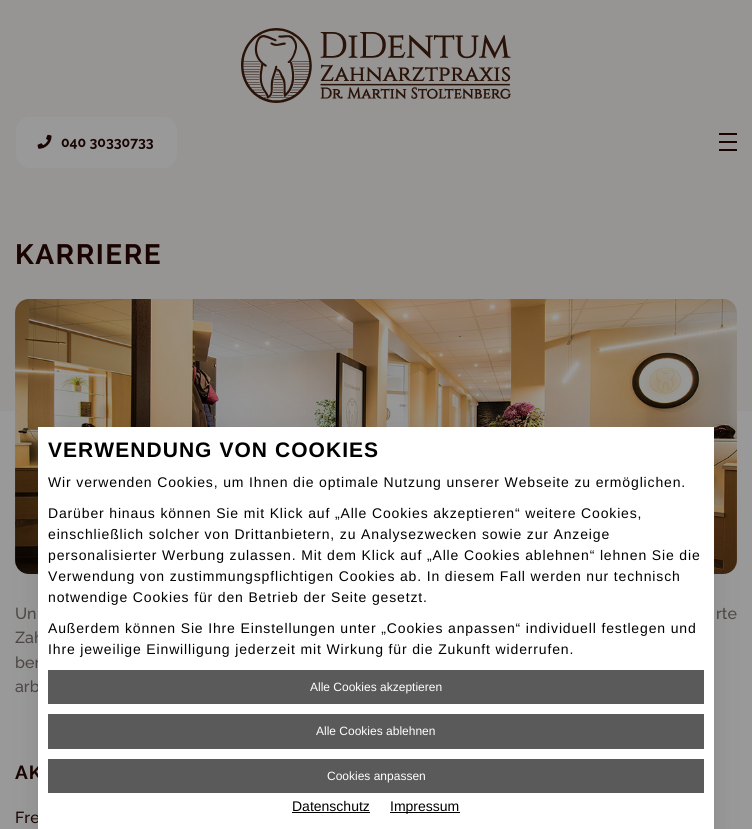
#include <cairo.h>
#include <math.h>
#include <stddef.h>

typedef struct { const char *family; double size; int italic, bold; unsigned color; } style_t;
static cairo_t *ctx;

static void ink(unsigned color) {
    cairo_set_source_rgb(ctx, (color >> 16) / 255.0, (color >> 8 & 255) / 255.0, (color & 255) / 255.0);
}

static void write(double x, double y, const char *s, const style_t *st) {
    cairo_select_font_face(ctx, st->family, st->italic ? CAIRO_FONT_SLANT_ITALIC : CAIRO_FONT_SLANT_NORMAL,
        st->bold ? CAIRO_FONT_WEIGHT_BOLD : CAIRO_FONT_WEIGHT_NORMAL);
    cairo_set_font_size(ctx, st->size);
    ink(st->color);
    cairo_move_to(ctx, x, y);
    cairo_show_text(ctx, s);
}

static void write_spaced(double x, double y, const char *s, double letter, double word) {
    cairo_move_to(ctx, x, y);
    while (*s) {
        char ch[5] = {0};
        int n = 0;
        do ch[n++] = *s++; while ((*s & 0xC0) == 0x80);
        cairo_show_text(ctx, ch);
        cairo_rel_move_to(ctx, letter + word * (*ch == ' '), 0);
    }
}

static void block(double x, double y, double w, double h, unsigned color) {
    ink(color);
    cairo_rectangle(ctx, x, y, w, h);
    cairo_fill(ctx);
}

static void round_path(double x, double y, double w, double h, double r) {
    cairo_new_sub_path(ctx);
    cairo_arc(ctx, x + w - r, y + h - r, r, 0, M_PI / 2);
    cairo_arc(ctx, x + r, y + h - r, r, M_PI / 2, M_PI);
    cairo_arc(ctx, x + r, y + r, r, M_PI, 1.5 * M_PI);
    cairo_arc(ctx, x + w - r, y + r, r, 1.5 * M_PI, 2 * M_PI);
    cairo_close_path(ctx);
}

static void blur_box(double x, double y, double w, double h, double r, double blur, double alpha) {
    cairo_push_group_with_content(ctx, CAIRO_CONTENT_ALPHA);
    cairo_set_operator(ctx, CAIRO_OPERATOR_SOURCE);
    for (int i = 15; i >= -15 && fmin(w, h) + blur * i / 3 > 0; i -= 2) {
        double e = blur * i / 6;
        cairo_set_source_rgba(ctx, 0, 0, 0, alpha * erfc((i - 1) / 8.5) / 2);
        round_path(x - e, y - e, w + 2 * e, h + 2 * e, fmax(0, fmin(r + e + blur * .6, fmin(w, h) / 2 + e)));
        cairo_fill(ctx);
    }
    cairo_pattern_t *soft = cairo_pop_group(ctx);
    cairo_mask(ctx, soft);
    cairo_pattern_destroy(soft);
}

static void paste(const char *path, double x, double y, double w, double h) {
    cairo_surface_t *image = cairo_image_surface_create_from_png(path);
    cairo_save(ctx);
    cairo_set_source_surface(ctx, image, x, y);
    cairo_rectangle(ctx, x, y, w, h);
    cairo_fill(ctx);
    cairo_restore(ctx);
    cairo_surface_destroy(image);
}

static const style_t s1 = {"Raleway Thin", 14, 0, 0, 0x190401};
static const style_t s2 = {"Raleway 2 Thin", 16, 0, 0, 0x4d4645};
static const style_t s3 = {"Raleway 2 Thin", 16, 0, 0, 0x190401};
static const style_t s4 = {"Liberation Sans", 12, 0, 0, 0xffffff};
static const style_t s5 = {"Liberation Sans", 14, 0, 0, 0x000000};

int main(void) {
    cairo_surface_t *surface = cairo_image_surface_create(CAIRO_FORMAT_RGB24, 752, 829);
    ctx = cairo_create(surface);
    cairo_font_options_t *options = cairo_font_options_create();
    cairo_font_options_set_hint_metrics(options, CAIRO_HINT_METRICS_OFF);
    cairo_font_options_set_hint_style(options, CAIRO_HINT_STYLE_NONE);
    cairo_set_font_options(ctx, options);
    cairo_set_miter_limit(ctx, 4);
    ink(0x999999);
    cairo_paint(ctx);
    block(0, 0, 752, 28, 0x979594);
    cairo_rectangle(ctx, -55, 168, 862, 173);
    cairo_set_line_width(ctx, 140);
    cairo_stroke(ctx);
    cairo_set_fill_rule(ctx, CAIRO_FILL_RULE_EVEN_ODD);
    cairo_new_path(ctx);
    cairo_move_to(ctx, -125, 28);
    cairo_line_to(ctx, -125, 341);
    cairo_line_to(ctx, 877, 341);
    cairo_line_to(ctx, 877, 28);
    cairo_close_path(ctx);
    cairo_move_to(ctx, 15, 238);
    cairo_line_to(ctx, 15, 271);
    cairo_line_to(ctx, 737, 271);
    cairo_line_to(ctx, 737, 238);
    cairo_close_path(ctx);
    cairo_fill(ctx);
    paste("pic1.png", 241, 28, 270, 75);
    ink(0x999999);
    round_path(16, 117, 161, 51, 14);
    cairo_fill(ctx);
    paste("pic2.png", 37, 134, 15, 15);
    write(61, 147, "040 30330733", &s1);
    block(719, 133, 18, 2, 0x190401);
    block(719, 141, 18, 2, 0x190401);
    block(719, 149, 18, 2, 0x190401);
    block(15, 238, 722, 33, 0x979594);
    cairo_set_font_size(ctx, 28);
    ink(0x190401);
    write_spaced(15, 264, "KARRIERE", 1.5, 0);
    paste("pic3.png", 15, 299, 722, 275);
    write(15, 619, "Un", &s2);
    write(716, 619, "rte", &s2);
    write(15, 643, "Zah", &s2);
    write(15, 668, "ber", &s2);
    write(15, 692, "arb", &s2);
    cairo_select_font_face(ctx, "Raleway Thin", CAIRO_FONT_SLANT_NORMAL, CAIRO_FONT_WEIGHT_NORMAL);
    cairo_set_font_size(ctx, 19);
    ink(0x190401);
    write_spaced(15, 779, "AK", 1, 0);
    write(15, 823, "Fre", &s3);
    ink(0x000000);
    blur_box(38, 433, 676, 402, 0, 14, 0.1);
    block(38, 427, 676, 402, 0xffffff);
    cairo_select_font_face(ctx, "Liberation Sans", CAIRO_FONT_SLANT_NORMAL, CAIRO_FONT_WEIGHT_BOLD);
    cairo_set_font_size(ctx, 21);
    ink(0x000000);
    write_spaced(48, 457, "VERWENDUNG VON COOKIES", 1.05, 0);
    cairo_select_font_face(ctx, "Liberation Sans", CAIRO_FONT_SLANT_NORMAL, CAIRO_FONT_WEIGHT_NORMAL);
    cairo_set_font_size(ctx, 14);
    write_spaced(48, 487, "Wir verwenden Cookies, um Ihnen die optimale Nutzung unserer Webseite zu ermöglichen.", 0.85, 0);
    write_spaced(48, 518, "Darüber hinaus können Sie mit Klick auf „Alle Cookies akzeptieren“ weitere Cookies,", 0.85, 0);
    write_spaced(48, 539, "einschließlich solcher von Drittanbietern, zu Analysezwecken sowie zur Anzeige", 0.85, 0);
    write_spaced(48, 560, "personalisierter Werbung zulassen. Mit dem Klick auf „Alle Cookies ablehnen“ lehnen Sie die", 0.85, 0);
    write_spaced(48, 581, "Verwendung von zustimmungspflichtigen Cookies ab. In diesem Fall werden nur technisch", 0.85, 0);
    write_spaced(48, 602, "notwendige Cookies für den Betrieb der Seite gesetzt.", 0.85, 0);
    write_spaced(48, 633, "Außerdem können Sie Ihre Einstellungen unter „Cookies anpassen“ individuell festlegen und", 0.85, 0);
    write_spaced(48, 654, "Ihre jeweilige Einwilligung jederzeit mit Wirkung für die Zukunft widerrufen.", 0.85, 0);
    block(48, 670, 656, 34, 0x5a5a5a);
    write(310, 691, "Alle Cookies akzeptieren", &s4);
    block(48, 714, 656, 35, 0x5a5a5a);
    write(316, 735, "Alle Cookies ablehnen", &s4);
    block(48, 759, 656, 34, 0x5a5a5a);
    write(327, 780, "Cookies anpassen", &s4);
    write(292, 811, "Datenschutz", &s5);
    block(292, 812, 78, 1, 0x000000);
    block(390, 812, 70, 1, 0x000000);
    write(390, 811, "Impressum", &s5);
    cairo_surface_write_to_png(surface, "screenshot.png");
    cairo_font_options_destroy(options);
    cairo_destroy(ctx);
    cairo_surface_destroy(surface);
    return 0;
}
